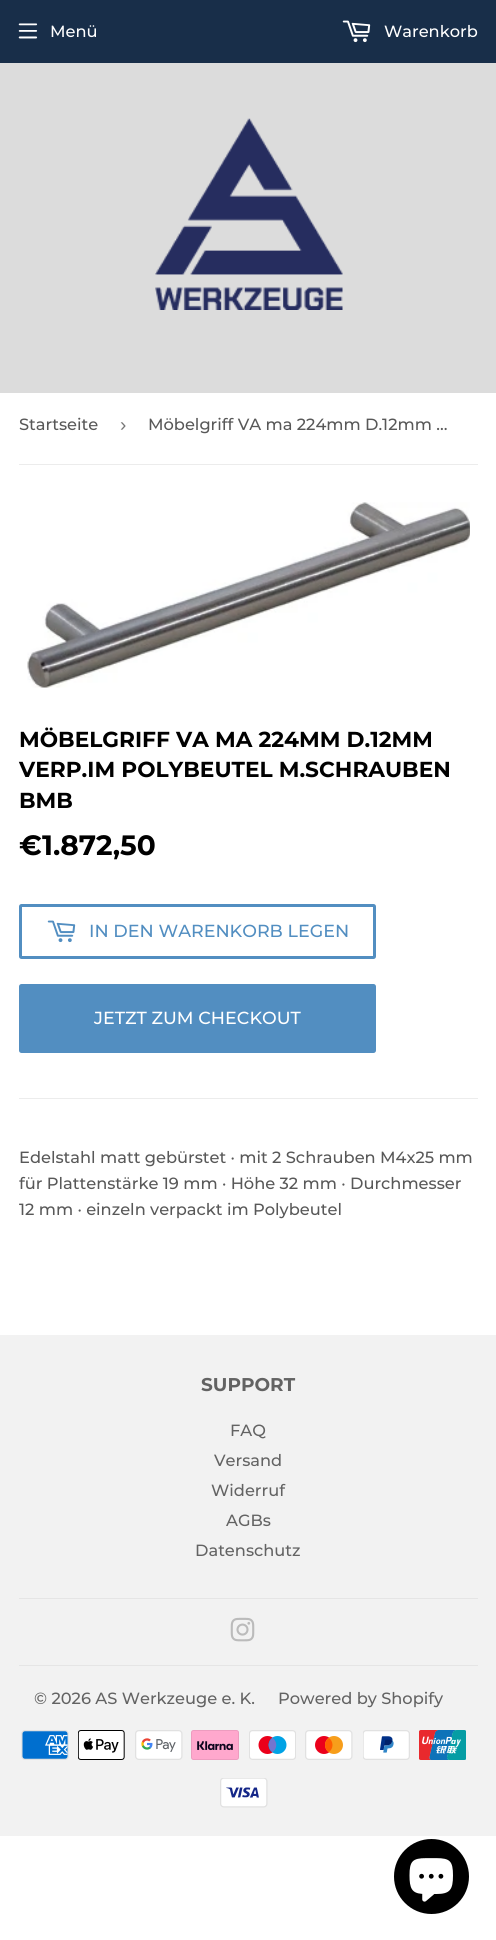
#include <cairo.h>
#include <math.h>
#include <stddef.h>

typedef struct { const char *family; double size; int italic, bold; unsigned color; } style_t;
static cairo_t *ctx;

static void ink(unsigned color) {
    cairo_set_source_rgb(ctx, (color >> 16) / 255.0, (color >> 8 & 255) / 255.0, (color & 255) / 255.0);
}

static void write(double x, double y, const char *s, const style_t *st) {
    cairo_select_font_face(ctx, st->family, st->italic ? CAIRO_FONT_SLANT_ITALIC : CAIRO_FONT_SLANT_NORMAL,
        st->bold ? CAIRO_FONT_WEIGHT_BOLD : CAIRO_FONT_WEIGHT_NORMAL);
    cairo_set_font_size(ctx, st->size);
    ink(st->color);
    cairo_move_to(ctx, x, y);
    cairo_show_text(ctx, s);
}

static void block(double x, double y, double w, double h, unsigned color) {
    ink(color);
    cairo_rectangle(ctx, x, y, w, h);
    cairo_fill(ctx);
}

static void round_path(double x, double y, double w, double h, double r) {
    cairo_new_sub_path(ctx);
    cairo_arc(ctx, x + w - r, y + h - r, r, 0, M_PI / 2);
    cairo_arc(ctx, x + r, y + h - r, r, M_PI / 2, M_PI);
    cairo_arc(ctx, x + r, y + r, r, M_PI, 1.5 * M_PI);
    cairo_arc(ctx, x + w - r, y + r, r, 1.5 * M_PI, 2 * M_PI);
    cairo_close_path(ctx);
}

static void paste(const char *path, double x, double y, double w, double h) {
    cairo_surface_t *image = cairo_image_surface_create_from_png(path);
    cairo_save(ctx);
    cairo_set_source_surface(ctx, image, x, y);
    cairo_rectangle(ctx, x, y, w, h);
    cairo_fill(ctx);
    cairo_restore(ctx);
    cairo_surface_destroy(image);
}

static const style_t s1 = {"Montserrat Medium", 16.25, 0, 0, 0xffffff};
static const style_t s2 = {"Montserrat Medium", 16.25, 0, 0, 0x585858};
static const style_t s3 = {"Liberation Sans", 19, 0, 0, 0x767676};
static const style_t s4 = {"Montserrat", 21.7, 0, 1, 0x000000};
static const style_t s5 = {"Montserrat", 28, 0, 1, 0x000000};
static const style_t s6 = {"Montserrat Medium", 17.5, 0, 0, 0x528ec1};
static const style_t s7 = {"Montserrat Medium", 17.5, 0, 0, 0xffffff};
static const style_t s8 = {"Montserrat", 18.5, 0, 1, 0x636363};
static const style_t s9 = {"Montserrat Medium", 16.25, 0, 0, 0x636363};

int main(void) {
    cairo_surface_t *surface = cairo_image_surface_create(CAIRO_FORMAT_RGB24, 496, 1940);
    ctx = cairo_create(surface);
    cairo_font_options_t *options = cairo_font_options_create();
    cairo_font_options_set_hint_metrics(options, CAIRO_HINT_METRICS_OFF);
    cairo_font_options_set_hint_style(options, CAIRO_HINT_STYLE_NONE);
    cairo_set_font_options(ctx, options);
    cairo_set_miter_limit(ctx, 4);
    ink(0xffffff);
    cairo_paint(ctx);
    block(0, 0, 496, 63, 0x182e49);
    paste("pic1.png", 18, 23, 20, 16);
    write(50, 37, "Menü", &s1);
    paste("pic2.png", 342, 20, 29, 23);
    write(384, 37, "Warenkorb", &s1);
    block(0, 63, 496, 330, 0xdcdcdc);
    paste("pic3.png", 155, 118, 188, 192);
    block(19, 464, 459, 1, 0xececec);
    write(19, 430, "Startseite", &s2);
    write(120, 431, "›", &s3);
    write(148, 430, "Möbelgriff VA ma 224mm D.12mm …", &s2);
    paste("pic4.png", 27, 502, 443, 186);
    write(19, 747, "MÖBELGRIFF VA MA 224MM D.12MM", &s4);
    write(19, 777, "VERP.IM POLYBEUTEL M.SCHRAUBEN", &s4);
    write(19, 808, "BMB", &s4);
    write(19, 855, "€1.872,50", &s5);
    round_path(20.5, 905.5, 354, 52, 1);
    ink(0x528ec1);
    cairo_set_line_width(ctx, 3);
    cairo_stroke(ctx);
    paste("pic5.png", 47, 920, 29, 23);
    write(89, 937, "IN DEN WARENKORB LEGEN", &s6);
    round_path(19, 984, 357, 69, 2.5);
    cairo_fill(ctx);
    write(94, 1024, "JETZT ZUM CHECKOUT", &s7);
    block(19, 1098, 459, 1, 0xececec);
    write(19, 1163, "Edelstahl matt gebürstet · mit 2 Schrauben M4x25 mm", &s2);
    write(19, 1189, "für Plattenstärke 19 mm · Höhe 32 mm · Durchmesser", &s2);
    write(19, 1215, "12 mm · einzeln verpackt im Polybeutel", &s2);
    block(0, 1335, 496, 501, 0xf2f2f2);
    write(201, 1391, "SUPPORT", &s8);
    write(230, 1436, "FAQ", &s9);
    write(214, 1466, "Versand", &s9);
    write(211, 1496, "Widerruf", &s9);
    write(226, 1526, "AGBs", &s9);
    write(195, 1556, "Datenschutz", &s9);
    block(19, 1598, 459, 1, 0xe5e5e5);
    paste("pic6.png", 230, 1617, 25, 25);
    block(19, 1665, 459, 1, 0xe5e5e5);
    write(34, 1704, "© 2026 AS Werkzeuge e. K.", &s9);
    write(278, 1704, "Powered by Shopify", &s9);
    paste("pic7.png", 21, 1730, 48, 30);
    paste("pic8.png", 78, 1730, 47, 30);
    paste("pic9.png", 135, 1730, 48, 30);
    paste("pic10.png", 191, 1730, 48, 30);
    paste("pic11.png", 249, 1730, 47, 30);
    paste("pic12.png", 305, 1730, 48, 30);
    paste("pic13.png", 363, 1730, 47, 30);
    paste("pic14.png", 419, 1730, 47, 30);
    paste("pic15.png", 220, 1778, 48, 30);
    ink(0x000000);
    cairo_arc(ctx, 431.5, 1876.5, 37.5, 0, 2 * M_PI);
    cairo_fill(ctx);
    paste("pic16.png", 409, 1858, 44, 44);
    cairo_surface_write_to_png(surface, "screenshot.png");
    cairo_font_options_destroy(options);
    cairo_destroy(ctx);
    cairo_surface_destroy(surface);
    return 0;
}
